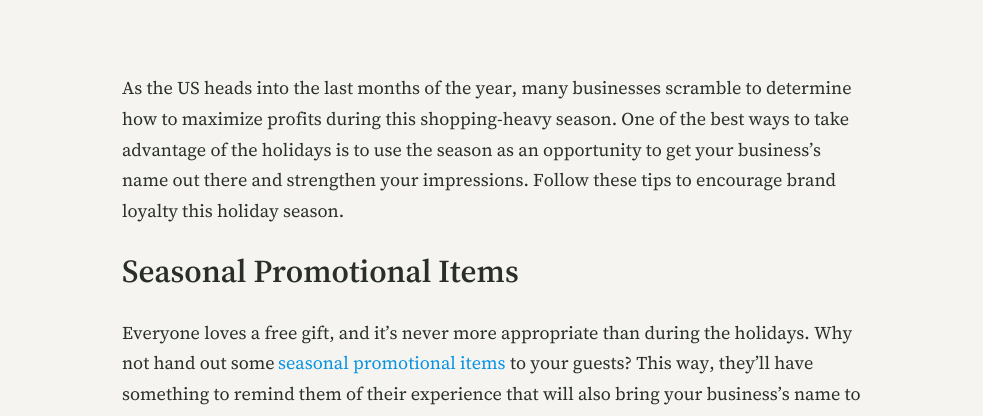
#include <cairo.h>
#include <math.h>
#include <stddef.h>

typedef struct { const char *family; double size; int italic, bold; unsigned color; } style_t;
static cairo_t *ctx;

static void ink(unsigned color) {
    cairo_set_source_rgb(ctx, (color >> 16) / 255.0, (color >> 8 & 255) / 255.0, (color & 255) / 255.0);
}

static void write(double x, double y, const char *s, const style_t *st) {
    cairo_select_font_face(ctx, st->family, st->italic ? CAIRO_FONT_SLANT_ITALIC : CAIRO_FONT_SLANT_NORMAL,
        st->bold ? CAIRO_FONT_WEIGHT_BOLD : CAIRO_FONT_WEIGHT_NORMAL);
    cairo_set_font_size(ctx, st->size);
    ink(st->color);
    cairo_move_to(ctx, x, y);
    cairo_show_text(ctx, s);
}

static const style_t s1 = {"Source Serif 4", 18, 0, 0, 0x292e29};
static const style_t s2 = {"Source Serif 4 SemiBold", 32, 0, 0, 0x292e29};
static const style_t s3 = {"Source Serif 4", 18, 0, 0, 0x0693e3};

int main(void) {
    cairo_surface_t *surface = cairo_image_surface_create(CAIRO_FORMAT_RGB24, 983, 416);
    ctx = cairo_create(surface);
    cairo_font_options_t *options = cairo_font_options_create();
    cairo_font_options_set_hint_metrics(options, CAIRO_HINT_METRICS_OFF);
    cairo_font_options_set_hint_style(options, CAIRO_HINT_STYLE_NONE);
    cairo_set_font_options(ctx, options);
    cairo_set_miter_limit(ctx, 4);
    ink(0xf5f4f1);
    cairo_paint(ctx);
    write(122, 94, "As the US heads into the last months of the year, many businesses scramble to determine", &s1);
    write(122, 125, "how to maximize profits during this shopping-heavy season. One of the best ways to take", &s1);
    write(122, 156, "advantage of the holidays is to use the season as an opportunity to get your business’s", &s1);
    write(122, 186, "name out there and strengthen your impressions. Follow these tips to encourage brand", &s1);
    write(122, 217, "loyalty this holiday season.", &s1);
    write(122, 282, "Seasonal Promotional Items", &s2);
    write(122, 339, "Everyone loves a free gift, and it’s never more appropriate than during the holidays. Why", &s1);
    write(122, 369, "not hand out some", &s1);
    write(278, 369, "seasonal promotional items", &s3);
    write(510, 369, "to your guests? This way, they’ll have", &s1);
    write(122, 400, "something to remind them of their experience that will also bring your business’s name to", &s1);
    cairo_surface_write_to_png(surface, "screenshot.png");
    cairo_font_options_destroy(options);
    cairo_destroy(ctx);
    cairo_surface_destroy(surface);
    return 0;
}
